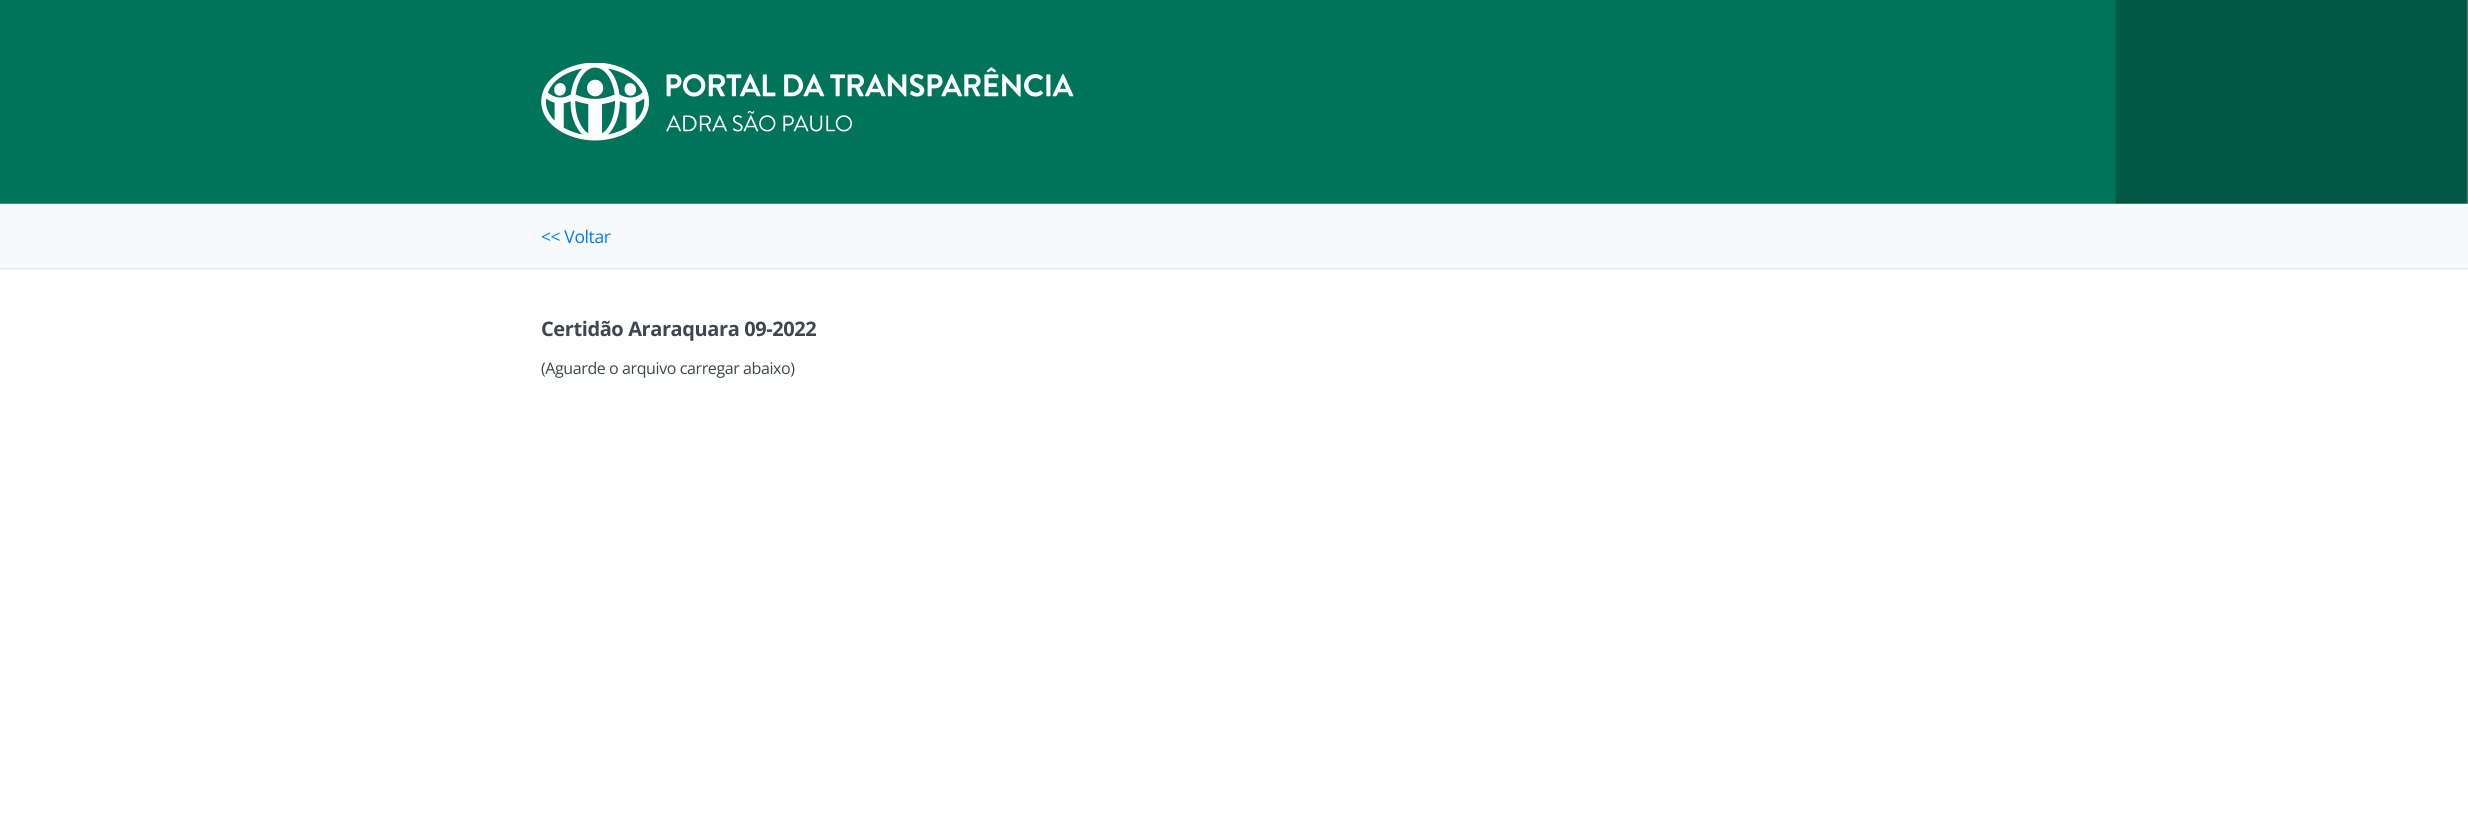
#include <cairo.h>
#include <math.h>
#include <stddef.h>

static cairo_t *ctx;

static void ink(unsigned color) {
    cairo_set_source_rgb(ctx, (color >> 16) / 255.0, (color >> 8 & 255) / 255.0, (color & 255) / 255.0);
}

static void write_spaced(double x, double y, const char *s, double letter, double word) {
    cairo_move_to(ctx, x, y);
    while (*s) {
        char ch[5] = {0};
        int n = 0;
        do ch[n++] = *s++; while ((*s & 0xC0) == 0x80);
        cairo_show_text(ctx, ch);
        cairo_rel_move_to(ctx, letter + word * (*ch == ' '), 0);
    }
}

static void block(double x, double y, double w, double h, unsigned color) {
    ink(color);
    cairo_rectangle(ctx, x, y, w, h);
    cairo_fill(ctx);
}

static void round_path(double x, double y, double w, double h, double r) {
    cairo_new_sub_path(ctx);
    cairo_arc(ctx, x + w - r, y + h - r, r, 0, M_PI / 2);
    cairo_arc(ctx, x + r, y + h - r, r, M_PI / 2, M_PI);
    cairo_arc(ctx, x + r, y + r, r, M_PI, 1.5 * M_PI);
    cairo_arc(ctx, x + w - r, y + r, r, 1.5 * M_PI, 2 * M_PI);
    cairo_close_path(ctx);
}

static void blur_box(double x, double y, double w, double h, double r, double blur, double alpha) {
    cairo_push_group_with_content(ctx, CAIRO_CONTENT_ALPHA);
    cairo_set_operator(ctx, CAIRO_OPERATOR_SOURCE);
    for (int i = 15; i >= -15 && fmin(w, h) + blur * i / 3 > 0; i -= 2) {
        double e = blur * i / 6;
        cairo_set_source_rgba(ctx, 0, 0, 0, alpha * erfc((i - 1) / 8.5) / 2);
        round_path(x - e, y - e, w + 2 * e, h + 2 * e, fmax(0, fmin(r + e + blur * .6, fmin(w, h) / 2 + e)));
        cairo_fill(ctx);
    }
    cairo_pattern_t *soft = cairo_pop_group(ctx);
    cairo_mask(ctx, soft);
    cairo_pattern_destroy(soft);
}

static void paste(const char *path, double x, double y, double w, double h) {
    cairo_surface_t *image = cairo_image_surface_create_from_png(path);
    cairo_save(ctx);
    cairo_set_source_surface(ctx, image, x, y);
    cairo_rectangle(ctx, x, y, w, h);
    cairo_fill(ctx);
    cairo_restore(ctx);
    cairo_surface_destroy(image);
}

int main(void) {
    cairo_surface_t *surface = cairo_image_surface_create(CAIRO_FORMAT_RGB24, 2468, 824);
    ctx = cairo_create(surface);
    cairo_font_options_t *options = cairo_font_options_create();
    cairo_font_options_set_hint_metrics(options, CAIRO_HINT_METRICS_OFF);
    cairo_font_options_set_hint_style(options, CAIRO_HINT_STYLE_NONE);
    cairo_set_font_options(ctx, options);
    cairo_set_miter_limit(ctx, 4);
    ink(0xffffff);
    cairo_paint(ctx);
    paste("pic1.png", 0, 0, 2468, 204);
    paste("pic2.png", 541, 63, 533, 78);
    ink(0x000000);
    blur_box(0, 205, 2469, 64, 0, 1, 0.13);
    block(0, 204, 2468, 64, 0xf7f9fb);
    cairo_select_font_face(ctx, "Open Sans", CAIRO_FONT_SLANT_NORMAL, CAIRO_FONT_WEIGHT_NORMAL);
    cairo_set_font_size(ctx, 17.5);
    ink(0x007bff);
    write_spaced(541, 243, "<< Voltar", -0.4, 0);
    cairo_select_font_face(ctx, "Open Sans", CAIRO_FONT_SLANT_NORMAL, CAIRO_FONT_WEIGHT_BOLD);
    cairo_set_font_size(ctx, 20);
    ink(0x40464e);
    write_spaced(541, 336, "Certidão Araraquara 09-2022", -0.4, 0);
    cairo_select_font_face(ctx, "Open Sans", CAIRO_FONT_SLANT_NORMAL, CAIRO_FONT_WEIGHT_NORMAL);
    cairo_set_font_size(ctx, 16);
    write_spaced(541, 374, "(Aguarde o arquivo carregar abaixo)", -0.4, 0);
    cairo_surface_write_to_png(surface, "screenshot.png");
    cairo_font_options_destroy(options);
    cairo_destroy(ctx);
    cairo_surface_destroy(surface);
    return 0;
}
